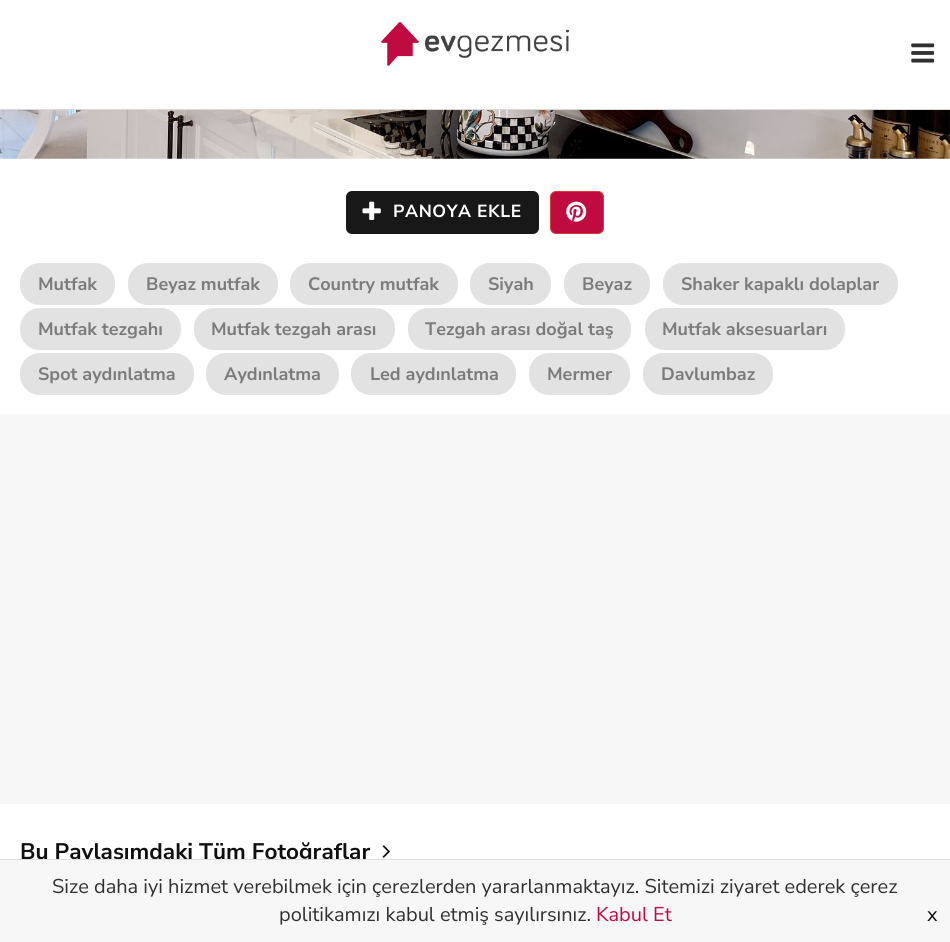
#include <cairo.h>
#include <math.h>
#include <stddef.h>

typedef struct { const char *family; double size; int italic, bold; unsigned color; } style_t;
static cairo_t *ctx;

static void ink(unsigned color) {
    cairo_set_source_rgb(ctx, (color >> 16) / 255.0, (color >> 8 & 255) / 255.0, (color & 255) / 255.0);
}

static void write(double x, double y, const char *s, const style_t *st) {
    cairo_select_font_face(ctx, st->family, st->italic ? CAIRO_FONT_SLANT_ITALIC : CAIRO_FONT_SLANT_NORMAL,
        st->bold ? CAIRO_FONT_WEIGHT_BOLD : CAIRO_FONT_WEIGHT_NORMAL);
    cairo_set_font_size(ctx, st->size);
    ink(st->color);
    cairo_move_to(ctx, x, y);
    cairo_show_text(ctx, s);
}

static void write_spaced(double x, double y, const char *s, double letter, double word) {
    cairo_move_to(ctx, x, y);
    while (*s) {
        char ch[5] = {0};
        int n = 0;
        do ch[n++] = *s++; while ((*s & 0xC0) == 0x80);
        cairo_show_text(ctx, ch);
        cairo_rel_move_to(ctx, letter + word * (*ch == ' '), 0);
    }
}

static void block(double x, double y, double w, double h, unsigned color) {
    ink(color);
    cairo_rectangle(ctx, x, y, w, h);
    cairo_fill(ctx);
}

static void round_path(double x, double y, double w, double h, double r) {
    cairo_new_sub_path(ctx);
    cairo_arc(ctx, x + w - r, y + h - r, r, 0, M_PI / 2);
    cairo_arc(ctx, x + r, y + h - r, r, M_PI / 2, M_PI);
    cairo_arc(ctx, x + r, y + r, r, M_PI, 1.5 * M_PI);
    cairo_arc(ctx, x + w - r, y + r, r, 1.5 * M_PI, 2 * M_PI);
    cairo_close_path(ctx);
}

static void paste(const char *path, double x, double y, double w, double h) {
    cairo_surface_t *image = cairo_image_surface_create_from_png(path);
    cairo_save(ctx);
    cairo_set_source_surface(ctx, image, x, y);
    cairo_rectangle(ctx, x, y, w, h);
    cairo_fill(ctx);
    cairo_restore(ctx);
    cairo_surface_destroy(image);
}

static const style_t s1 = {"Nunito Sans", 18, 0, 1, 0x7b7b7b};
static const style_t s2 = {"Nunito Sans", 22.5, 0, 1, 0x101010};
static const style_t s3 = {"Nunito Sans", 20, 0, 0, 0x303030};
static const style_t s4 = {"Nunito Sans", 20, 0, 0, 0xc00b40};
static const style_t s5 = {"Nunito Sans", 20, 0, 0, 0x101010};

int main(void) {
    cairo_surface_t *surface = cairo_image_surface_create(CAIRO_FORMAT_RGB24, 950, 942);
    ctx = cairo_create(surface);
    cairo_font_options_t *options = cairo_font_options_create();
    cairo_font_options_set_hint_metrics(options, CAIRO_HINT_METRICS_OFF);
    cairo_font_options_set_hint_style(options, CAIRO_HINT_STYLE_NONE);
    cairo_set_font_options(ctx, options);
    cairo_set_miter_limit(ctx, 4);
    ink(0xf7f7f7);
    cairo_paint(ctx);
    block(0, 0, 950, 109, 0xffffff);
    block(0, 109, 950, 1, 0xd8d8d8);
    paste("pic1.png", 381, 22, 188, 44);
    paste("pic2.png", 911, 43, 24, 20);
    block(0, 158, 950, 256, 0xffffff);
    paste("pic3.png", 0, 110, 950, 49);
    ink(0x181818);
    round_path(346, 191, 193, 43, 6);
    cairo_fill(ctx);
    paste("pic4.png", 362, 201, 19, 19);
    cairo_select_font_face(ctx, "Nunito Sans", CAIRO_FONT_SLANT_NORMAL, CAIRO_FONT_WEIGHT_BOLD);
    cairo_set_font_size(ctx, 17.5);
    ink(0xffffff);
    write_spaced(393, 217, "PANOYA EKLE", 0.6, 0);
    ink(0xc00b40);
    round_path(550.5, 191.5, 53, 42, 5.5);
    cairo_fill_preserve(ctx);
    ink(0xd43f3a);
    cairo_set_line_width(ctx, 1);
    cairo_stroke(ctx);
    paste("pic5.png", 566, 201, 21, 21);
    ink(0xe2e2e2);
    round_path(20, 263, 95, 42, 20);
    cairo_fill(ctx);
    write(38, 290, "Mutfak", &s1);
    ink(0xe2e2e2);
    round_path(128, 263, 150, 42, 20);
    cairo_fill(ctx);
    write(146, 290, "Beyaz mutfak", &s1);
    ink(0xe2e2e2);
    round_path(290, 263, 168, 42, 20);
    cairo_fill(ctx);
    write(308, 290, "Country mutfak", &s1);
    ink(0xe2e2e2);
    round_path(470, 263, 81, 42, 20);
    cairo_fill(ctx);
    write(488, 290, "Siyah", &s1);
    ink(0xe2e2e2);
    round_path(564, 263, 86, 42, 20);
    cairo_fill(ctx);
    write(582, 290, "Beyaz", &s1);
    ink(0xe2e2e2);
    round_path(663, 263, 235, 42, 20);
    cairo_fill(ctx);
    write(681, 290, "Shaker kapaklı dolaplar", &s1);
    ink(0xe2e2e2);
    round_path(20, 308, 161, 42, 20);
    cairo_fill(ctx);
    write(38, 335, "Mutfak tezgahı", &s1);
    ink(0xe2e2e2);
    round_path(194, 308, 201, 42, 20);
    cairo_fill(ctx);
    write(211, 335, "Mutfak tezgah arası", &s1);
    ink(0xe2e2e2);
    round_path(408, 308, 223, 42, 20);
    cairo_fill(ctx);
    write(425, 335, "Tezgah arası doğal taş", &s1);
    ink(0xe2e2e2);
    round_path(645, 308, 200, 42, 20);
    cairo_fill(ctx);
    write(662, 335, "Mutfak aksesuarları", &s1);
    ink(0xe2e2e2);
    round_path(20, 353, 174, 42, 20);
    cairo_fill(ctx);
    write(38, 380, "Spot aydınlatma", &s1);
    ink(0xe2e2e2);
    round_path(206, 353, 133, 42, 20);
    cairo_fill(ctx);
    write(224, 380, "Aydınlatma", &s1);
    ink(0xe2e2e2);
    round_path(351, 353, 165, 42, 20);
    cairo_fill(ctx);
    write(370, 380, "Led aydınlatma", &s1);
    ink(0xe2e2e2);
    round_path(529, 353, 101, 42, 20);
    cairo_fill(ctx);
    write(547, 380, "Mermer", &s1);
    ink(0xe2e2e2);
    round_path(643, 353, 130, 42, 20);
    cairo_fill(ctx);
    write(661, 380, "Davlumbaz", &s1);
    block(0, 804, 950, 55, 0xffffff);
    write(20, 859, "Bu Paylaşımdaki Tüm Fotoğraflar", &s2);
    paste("pic6.png", 382, 845, 8, 13);
    block(84, 860, 227, 4, 0xf5f5f5);
    block(0, 859, 950, 1, 0xdddddd);
    write(52, 893, "Size daha iyi hizmet verebilmek için çerezlerden yararlanmaktayız. Sitemizi ziyaret ederek çerez", &s3);
    write(279, 921, "politikamızı kabul etmiş sayılırsınız.", &s3);
    write(596, 921, "Kabul Et", &s4);
    write(927, 921, "x", &s5);
    cairo_surface_write_to_png(surface, "screenshot.png");
    cairo_font_options_destroy(options);
    cairo_destroy(ctx);
    cairo_surface_destroy(surface);
    return 0;
}
